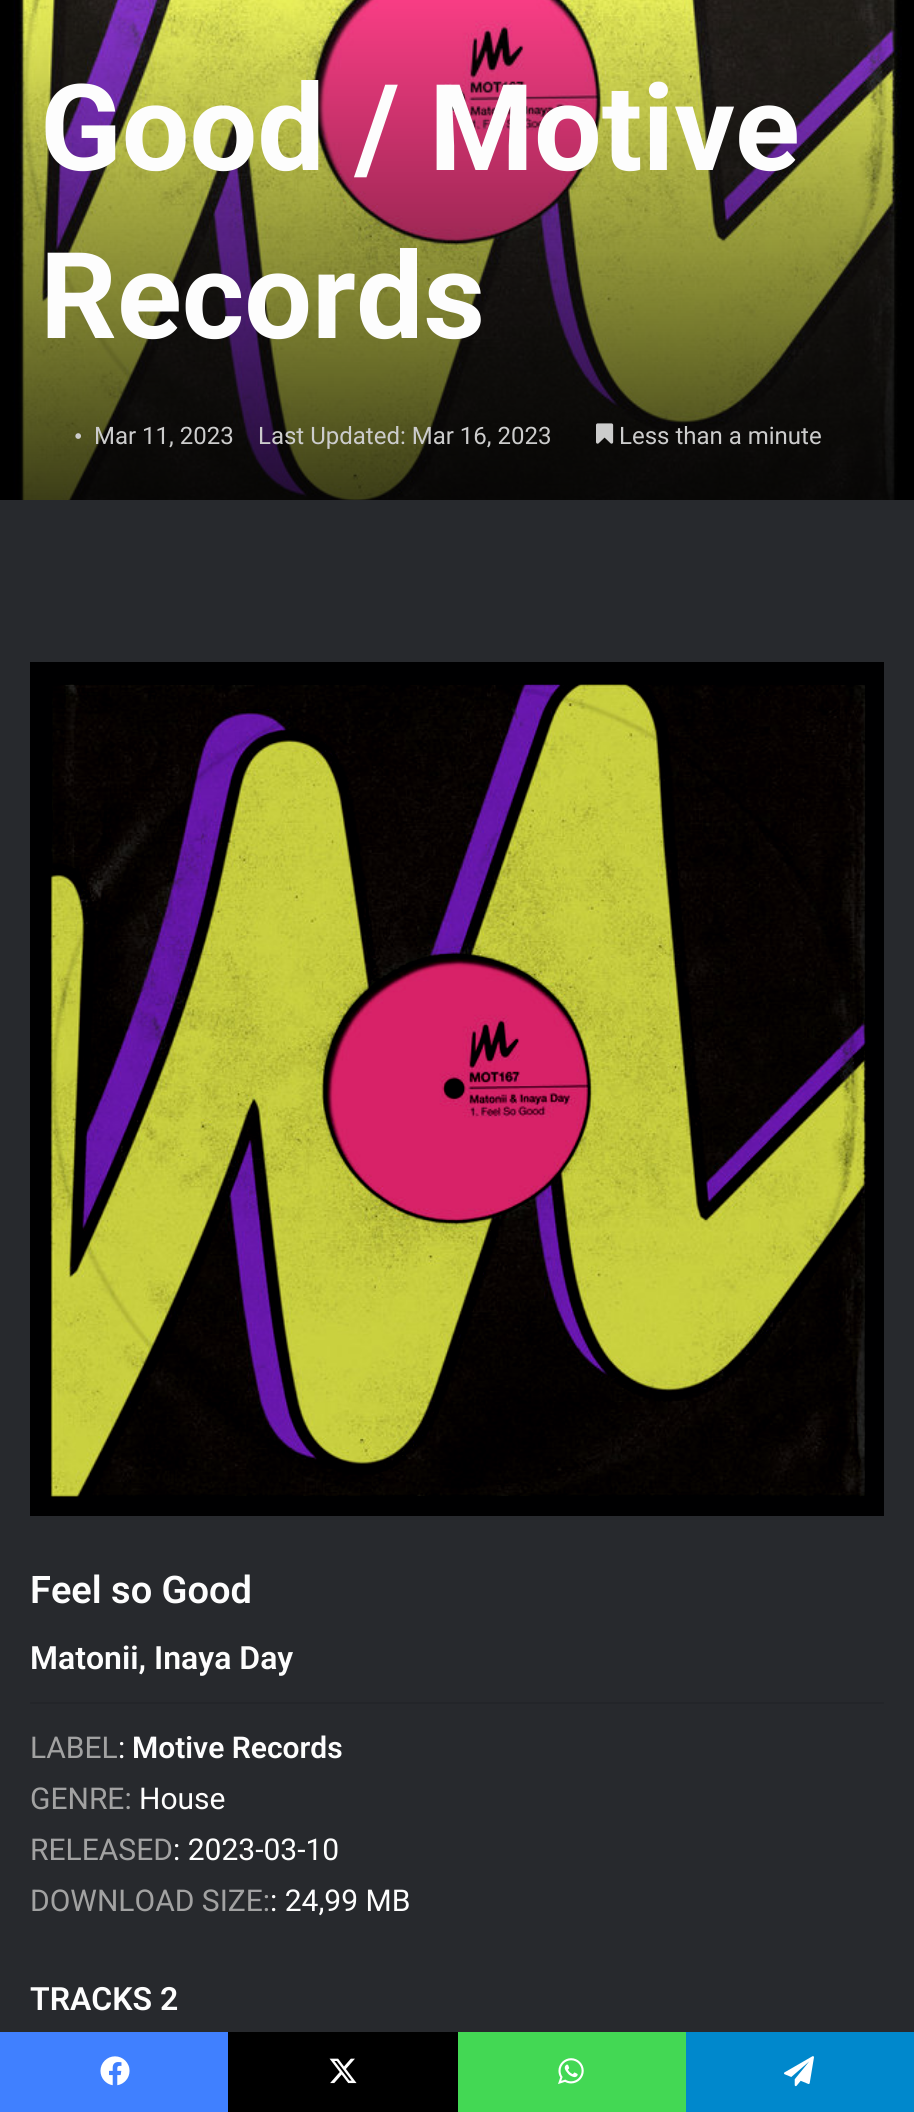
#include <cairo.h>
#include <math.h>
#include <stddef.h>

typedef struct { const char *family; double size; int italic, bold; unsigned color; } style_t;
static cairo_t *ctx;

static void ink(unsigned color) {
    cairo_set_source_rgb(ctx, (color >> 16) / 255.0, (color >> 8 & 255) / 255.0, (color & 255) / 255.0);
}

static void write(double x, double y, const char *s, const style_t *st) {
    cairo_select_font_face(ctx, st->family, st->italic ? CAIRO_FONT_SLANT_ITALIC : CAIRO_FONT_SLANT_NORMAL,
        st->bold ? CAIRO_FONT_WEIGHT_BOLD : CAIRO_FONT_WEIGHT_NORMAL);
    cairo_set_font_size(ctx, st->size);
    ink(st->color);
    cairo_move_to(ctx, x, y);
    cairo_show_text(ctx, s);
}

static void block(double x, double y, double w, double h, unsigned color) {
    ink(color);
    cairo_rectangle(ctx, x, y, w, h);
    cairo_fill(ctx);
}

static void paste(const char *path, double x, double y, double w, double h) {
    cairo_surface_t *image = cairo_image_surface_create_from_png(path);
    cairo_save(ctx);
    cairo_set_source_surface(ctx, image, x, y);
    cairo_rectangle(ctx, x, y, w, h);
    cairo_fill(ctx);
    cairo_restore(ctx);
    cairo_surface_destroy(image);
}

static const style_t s1 = {"Roboto", 120, 0, 1, 0xfdfdfd};
static const style_t s2 = {"Liberation Serif", 24, 0, 0, 0xcccccc};
static const style_t s3 = {"Roboto", 24, 0, 0, 0xcccccc};
static const style_t s4 = {"Roboto SemiBold", 38, 0, 0, 0xfdfdfd};
static const style_t s5 = {"Roboto SemiBold", 32, 0, 0, 0xfdfdfd};
static const style_t s6 = {"Roboto", 30, 0, 0, 0xa2a2a2};
static const style_t s7 = {"Roboto", 30, 0, 0, 0xfdfdfd};
static const style_t s8 = {"Roboto SemiBold", 30, 0, 0, 0xfdfdfd};

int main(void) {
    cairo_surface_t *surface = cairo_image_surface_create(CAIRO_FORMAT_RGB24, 914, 2112);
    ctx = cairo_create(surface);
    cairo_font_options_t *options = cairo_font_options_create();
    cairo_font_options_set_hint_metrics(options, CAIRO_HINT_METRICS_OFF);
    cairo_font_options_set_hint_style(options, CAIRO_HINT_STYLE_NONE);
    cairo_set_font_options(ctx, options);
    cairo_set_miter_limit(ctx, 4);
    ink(0x27292d);
    cairo_paint(ctx);
    paste("pic1.png", 0, 0, 914, 500);
    write(40, 170, "Good / Motive", &s1);
    write(40, 338, "Records", &s1);
    write(74, 444, "•", &s2);
    write(94, 444, "Mar 11, 2023", &s3);
    write(258, 444, "Last Updated: Mar 16, 2023", &s3);
    paste("pic2.png", 596, 423, 18, 21);
    write(619, 444, "Less than a minute", &s3);
    paste("pic3.png", 30, 662, 854, 854);
    write(30, 1603, "Feel so Good", &s4);
    write(30, 1669, "Matonii, Inaya Day", &s5);
    block(30, 1702, 854, 2, 0x232529);
    write(30, 1758, "LABEL", &s6);
    write(118, 1758, ":", &s7);
    write(132, 1758, "Motive Records", &s8);
    write(30, 1809, "GENRE:", &s6);
    write(139, 1809, "House", &s7);
    write(30, 1860, "RELEASED", &s6);
    write(173, 1860, ": 2023-03-10", &s7);
    write(30, 1911, "DOWNLOAD SIZE:", &s6);
    write(270, 1911, ": 24,99 MB", &s7);
    write(30, 2010, "TRACKS 2", &s5);
    block(0, 2032, 228, 80, 0x4080ff);
    paste("pic4.png", 100, 2056, 30, 30);
    block(228, 2032, 230, 80, 0x000000);
    paste("pic5.png", 329, 2058, 28, 26);
    block(458, 2032, 228, 80, 0x43d854);
    paste("pic6.png", 558, 2058, 26, 26);
    block(686, 2032, 228, 80, 0x0088cc);
    paste("pic7.png", 784, 2056, 30, 31);
    cairo_surface_write_to_png(surface, "screenshot.png");
    cairo_font_options_destroy(options);
    cairo_destroy(ctx);
    cairo_surface_destroy(surface);
    return 0;
}
